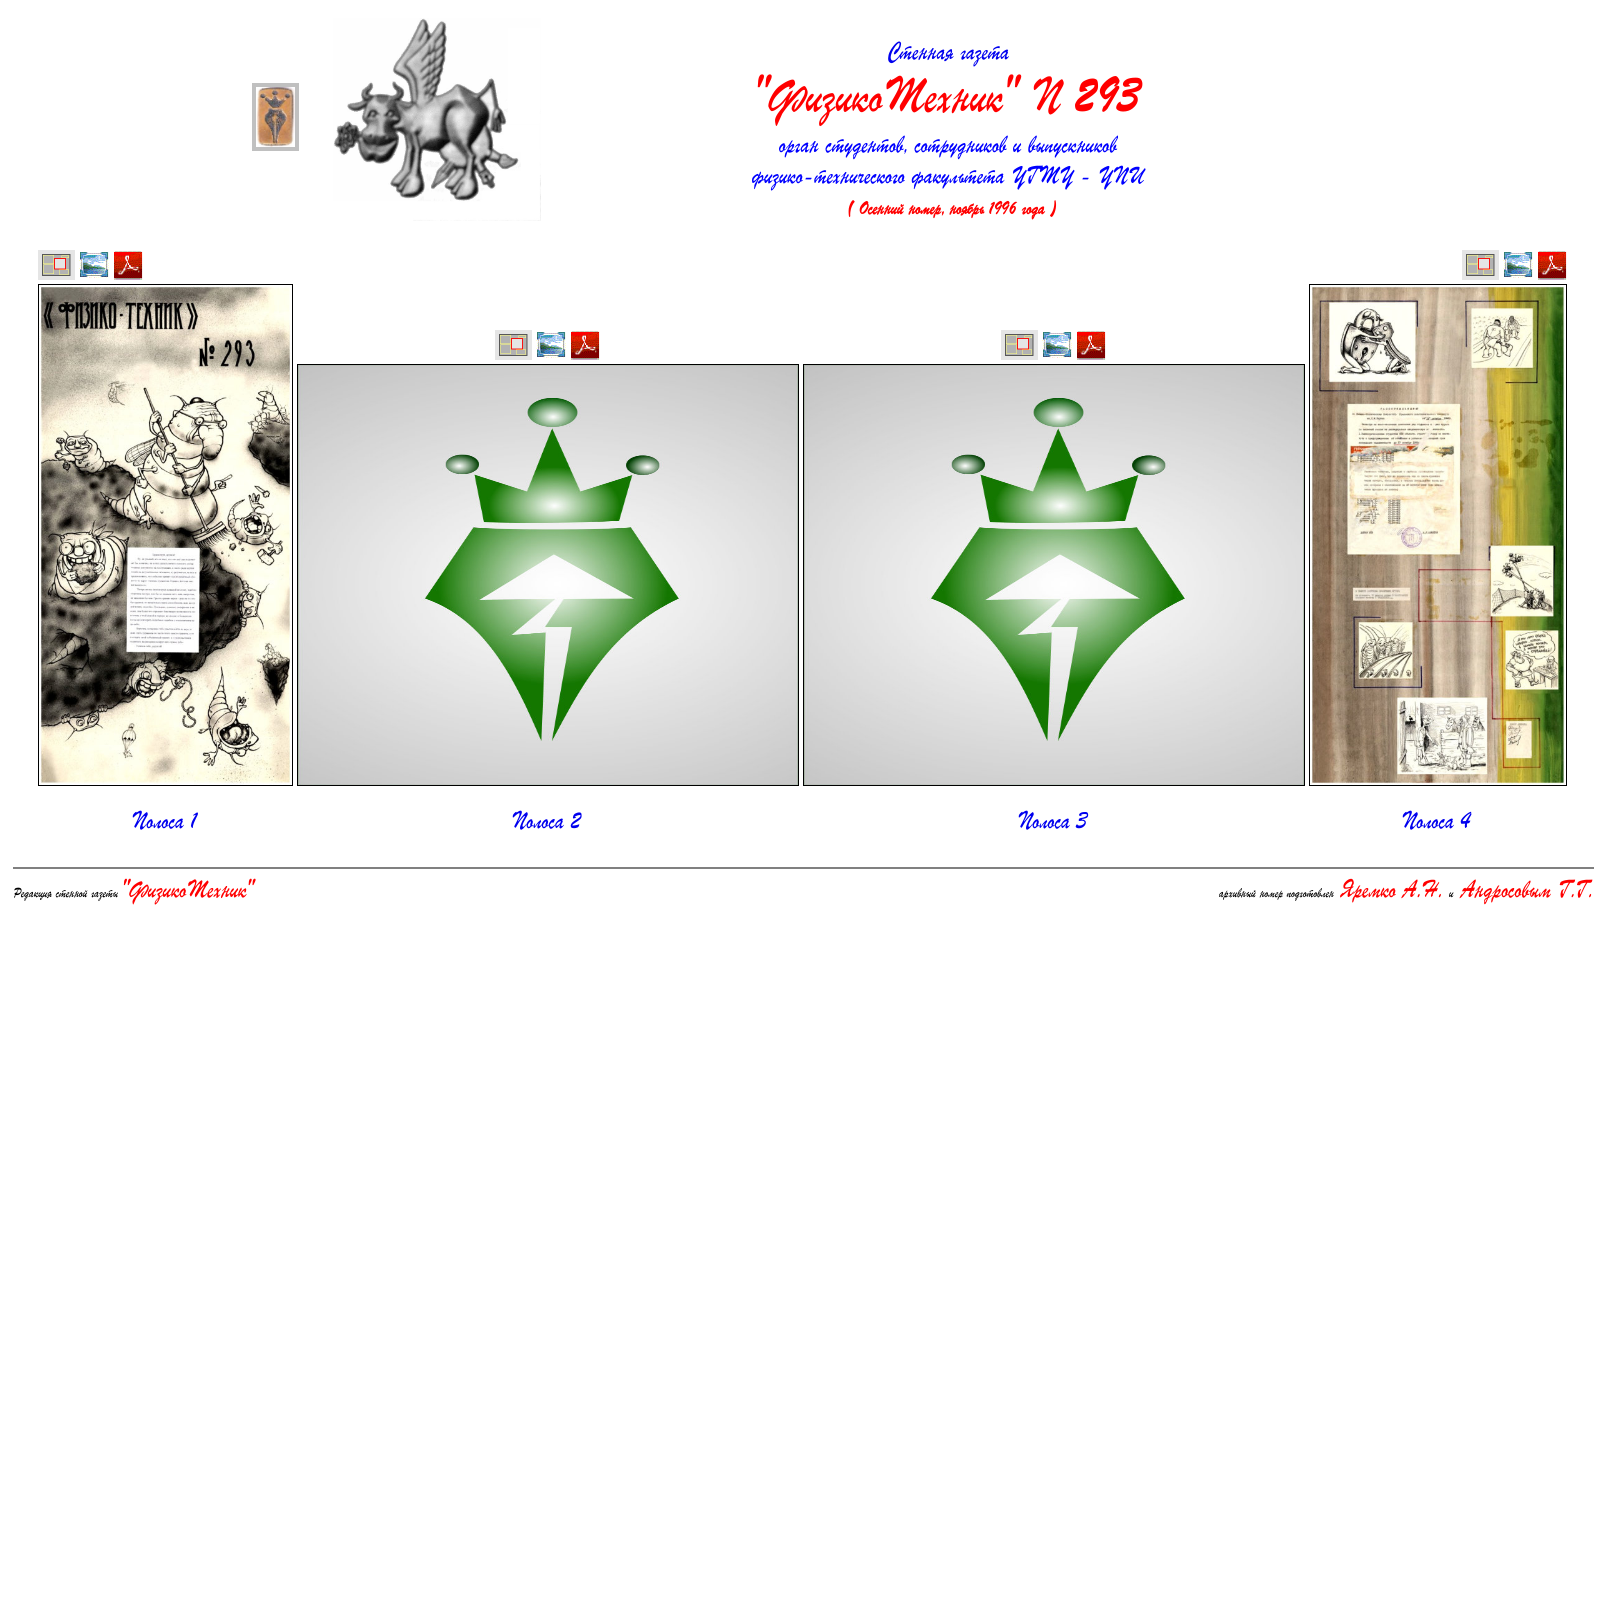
#include <cairo.h>
#include <math.h>
#include <stddef.h>

typedef struct { const char *family; double size; int italic, bold; unsigned color; } style_t;
static cairo_t *ctx;

static void ink(unsigned color) {
    cairo_set_source_rgb(ctx, (color >> 16) / 255.0, (color >> 8 & 255) / 255.0, (color & 255) / 255.0);
}

static void write(double x, double y, const char *s, const style_t *st) {
    cairo_select_font_face(ctx, st->family, st->italic ? CAIRO_FONT_SLANT_ITALIC : CAIRO_FONT_SLANT_NORMAL,
        st->bold ? CAIRO_FONT_WEIGHT_BOLD : CAIRO_FONT_WEIGHT_NORMAL);
    cairo_set_font_size(ctx, st->size);
    ink(st->color);
    cairo_move_to(ctx, x, y);
    cairo_show_text(ctx, s);
}

static void block(double x, double y, double w, double h, unsigned color) {
    ink(color);
    cairo_rectangle(ctx, x, y, w, h);
    cairo_fill(ctx);
}

static void paste(const char *path, double x, double y, double w, double h) {
    cairo_surface_t *image = cairo_image_surface_create_from_png(path);
    cairo_save(ctx);
    cairo_set_source_surface(ctx, image, x, y);
    cairo_rectangle(ctx, x, y, w, h);
    cairo_fill(ctx);
    cairo_restore(ctx);
    cairo_surface_destroy(image);
}

static const style_t s1 = {"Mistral", 24, 1, 0, 0x0000ee};
static const style_t s2 = {"Mistral", 48, 1, 0, 0xff0000};
static const style_t s3 = {"Mistral", 48, 1, 1, 0xff0000};
static const style_t s4 = {"Mistral", 24, 1, 0, 0x0000ff};
static const style_t s5 = {"Mistral", 18, 1, 1, 0xff0000};
static const style_t s6 = {"Mistral", 13, 1, 0, 0x000000};
static const style_t s7 = {"Mistral", 24, 1, 0, 0xff0000};

int main(void) {
    cairo_surface_t *surface = cairo_image_surface_create(CAIRO_FORMAT_RGB24, 1605, 1623);
    ctx = cairo_create(surface);
    cairo_font_options_t *options = cairo_font_options_create();
    cairo_font_options_set_hint_metrics(options, CAIRO_HINT_METRICS_OFF);
    cairo_font_options_set_hint_style(options, CAIRO_HINT_STYLE_NONE);
    cairo_set_font_options(ctx, options);
    cairo_set_miter_limit(ctx, 4);
    ink(0xffffff);
    cairo_paint(ctx);
    cairo_rectangle(ctx, 254, 85, 43, 64);
    ink(0xc0c0c0);
    cairo_set_line_width(ctx, 4);
    cairo_stroke(ctx);
    paste("pic1.png", 256, 87, 39, 60);
    paste("pic2.png", 333, 18, 208, 203);
    write(888, 59, "Стенная газета", &s1);
    write(754, 111, "\"ФизикоТехник\" N", &s2);
    write(1075, 111, "293", &s3);
    write(779, 152, "орган студентов, сотрудников и выпускников", &s4);
    write(752, 183, "физико-технического факультета УГТУ - УПИ", &s4);
    write(847, 214, "( Осенний номер, ноябрь 1996 года )", &s5);
    paste("pic3.png", 38, 250, 37, 30);
    paste("pic4.png", 79, 252, 30, 26);
    paste("pic5.png", 114, 251, 29, 29);
    cairo_rectangle(ctx, 38.5, 284.5, 254, 501);
    ink(0x000000);
    cairo_set_line_width(ctx, 1);
    cairo_stroke(ctx);
    paste("pic6.png", 39, 285, 253, 500);
    write(131, 828, "Полоса 1", &s1);
    paste("pic3.png", 495, 330, 37, 30);
    paste("pic4.png", 536, 332, 30, 26);
    paste("pic5.png", 571, 331, 29, 29);
    cairo_rectangle(ctx, 297.5, 364.5, 501, 421);
    ink(0x000000);
    cairo_stroke(ctx);
    paste("pic7.png", 298, 365, 500, 420);
    write(511, 828, "Полоса 2", &s1);
    paste("pic3.png", 1001, 330, 37, 30);
    paste("pic4.png", 1042, 332, 30, 26);
    paste("pic8.png", 1077, 331, 29, 29);
    cairo_rectangle(ctx, 803.5, 364.5, 501, 421);
    ink(0x000000);
    cairo_stroke(ctx);
    paste("pic7.png", 804, 365, 500, 420);
    write(1017, 828, "Полоса 3", &s1);
    paste("pic3.png", 1462, 250, 37, 30);
    paste("pic9.png", 1503, 252, 30, 26);
    paste("pic5.png", 1538, 251, 29, 29);
    cairo_rectangle(ctx, 1309.5, 284.5, 257, 501);
    ink(0x000000);
    cairo_stroke(ctx);
    paste("pic10.png", 1310, 285, 255, 500);
    write(1401, 828, "Полоса 4", &s1);
    block(13, 867, 1581, 2, 0x808080);
    write(13, 897, "Редакция стенной газеты", &s6);
    write(122, 897, "\"ФизикоТехник\"", &s7);
    write(1219, 897, "архивный номер подготовлен", &s6);
    write(1341, 897, "Яремко А.Н.", &s7);
    write(1449, 897, "и", &s6);
    write(1461, 897, "Андросовым Г.Г.", &s7);
    cairo_surface_write_to_png(surface, "screenshot.png");
    cairo_font_options_destroy(options);
    cairo_destroy(ctx);
    cairo_surface_destroy(surface);
    return 0;
}
